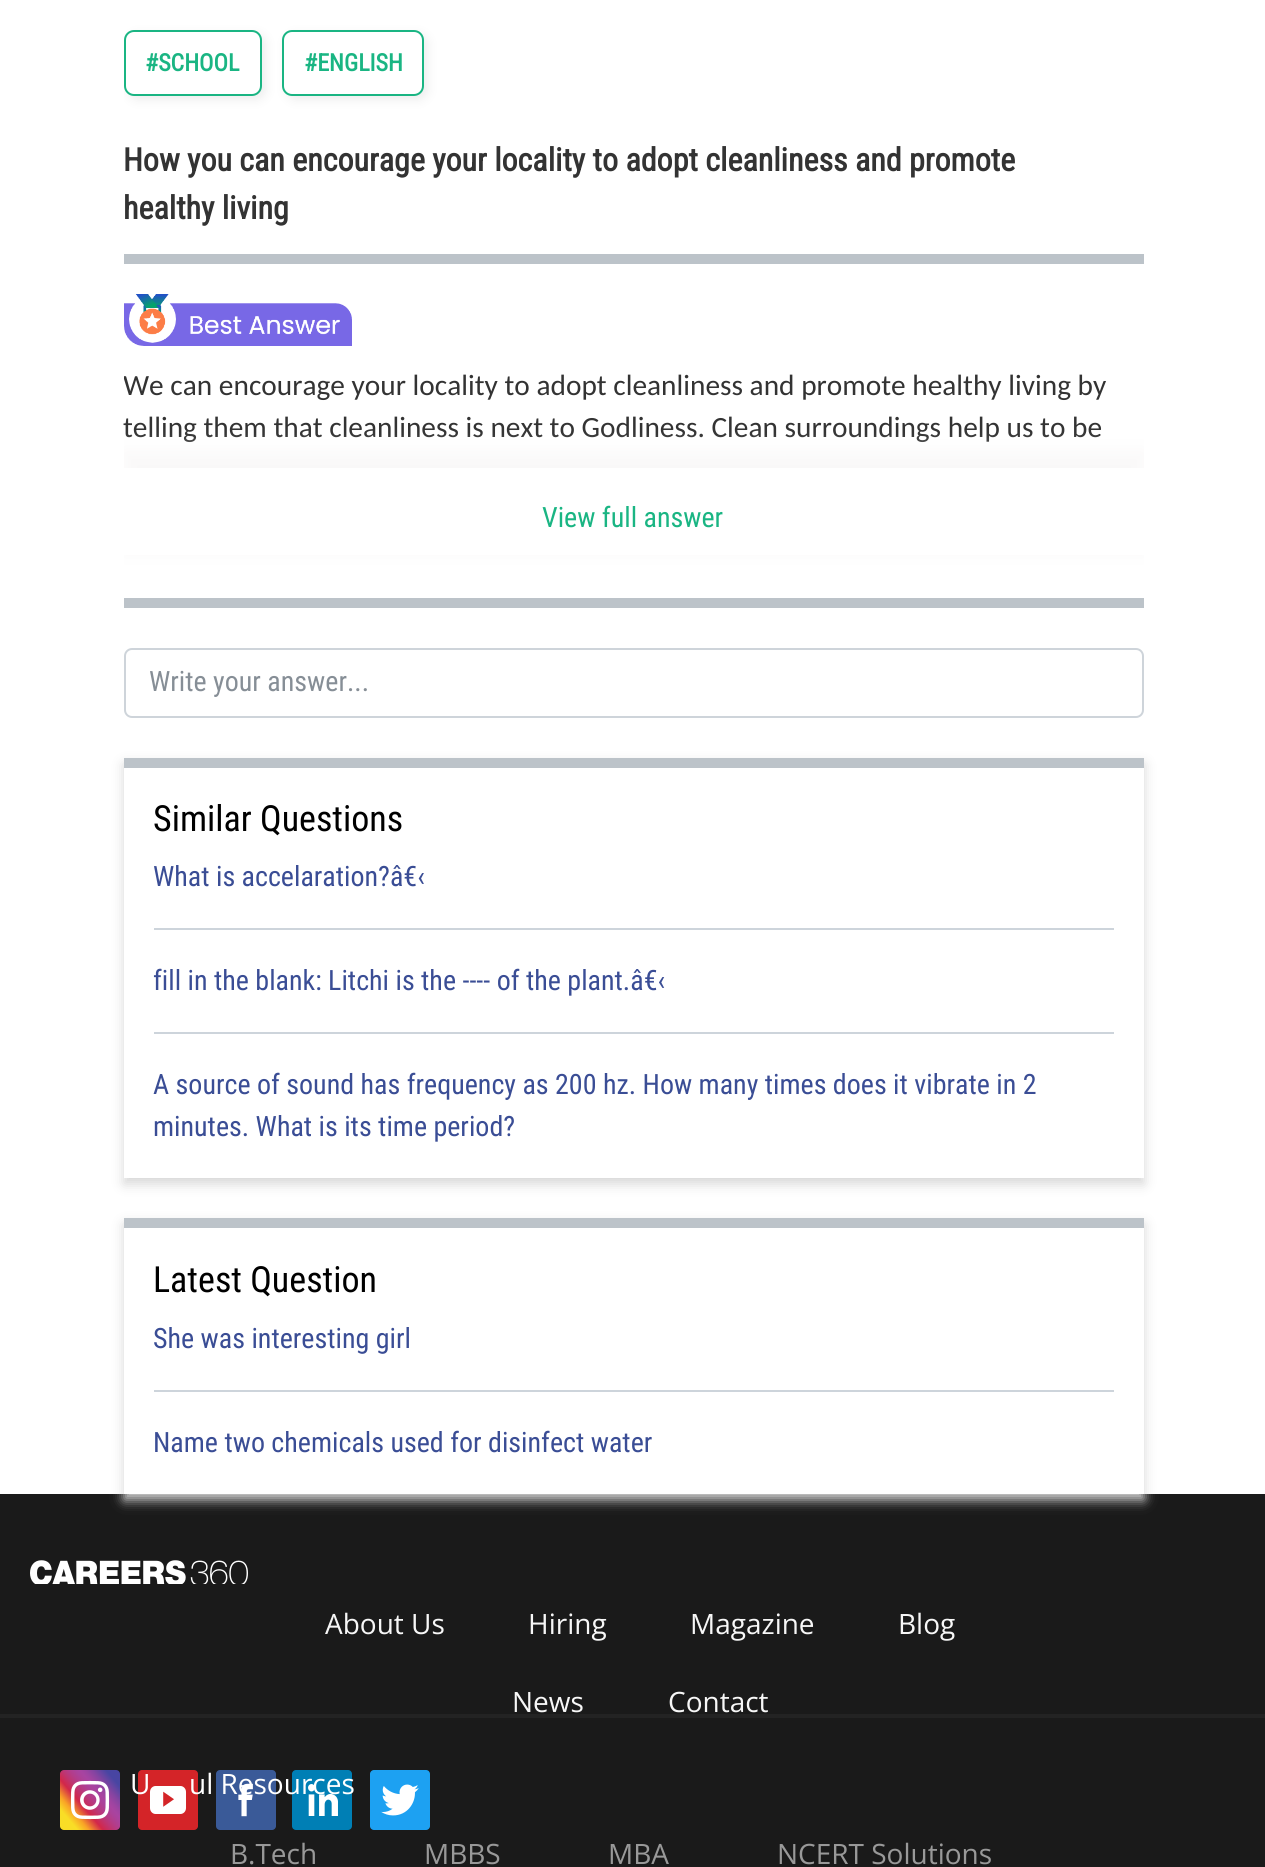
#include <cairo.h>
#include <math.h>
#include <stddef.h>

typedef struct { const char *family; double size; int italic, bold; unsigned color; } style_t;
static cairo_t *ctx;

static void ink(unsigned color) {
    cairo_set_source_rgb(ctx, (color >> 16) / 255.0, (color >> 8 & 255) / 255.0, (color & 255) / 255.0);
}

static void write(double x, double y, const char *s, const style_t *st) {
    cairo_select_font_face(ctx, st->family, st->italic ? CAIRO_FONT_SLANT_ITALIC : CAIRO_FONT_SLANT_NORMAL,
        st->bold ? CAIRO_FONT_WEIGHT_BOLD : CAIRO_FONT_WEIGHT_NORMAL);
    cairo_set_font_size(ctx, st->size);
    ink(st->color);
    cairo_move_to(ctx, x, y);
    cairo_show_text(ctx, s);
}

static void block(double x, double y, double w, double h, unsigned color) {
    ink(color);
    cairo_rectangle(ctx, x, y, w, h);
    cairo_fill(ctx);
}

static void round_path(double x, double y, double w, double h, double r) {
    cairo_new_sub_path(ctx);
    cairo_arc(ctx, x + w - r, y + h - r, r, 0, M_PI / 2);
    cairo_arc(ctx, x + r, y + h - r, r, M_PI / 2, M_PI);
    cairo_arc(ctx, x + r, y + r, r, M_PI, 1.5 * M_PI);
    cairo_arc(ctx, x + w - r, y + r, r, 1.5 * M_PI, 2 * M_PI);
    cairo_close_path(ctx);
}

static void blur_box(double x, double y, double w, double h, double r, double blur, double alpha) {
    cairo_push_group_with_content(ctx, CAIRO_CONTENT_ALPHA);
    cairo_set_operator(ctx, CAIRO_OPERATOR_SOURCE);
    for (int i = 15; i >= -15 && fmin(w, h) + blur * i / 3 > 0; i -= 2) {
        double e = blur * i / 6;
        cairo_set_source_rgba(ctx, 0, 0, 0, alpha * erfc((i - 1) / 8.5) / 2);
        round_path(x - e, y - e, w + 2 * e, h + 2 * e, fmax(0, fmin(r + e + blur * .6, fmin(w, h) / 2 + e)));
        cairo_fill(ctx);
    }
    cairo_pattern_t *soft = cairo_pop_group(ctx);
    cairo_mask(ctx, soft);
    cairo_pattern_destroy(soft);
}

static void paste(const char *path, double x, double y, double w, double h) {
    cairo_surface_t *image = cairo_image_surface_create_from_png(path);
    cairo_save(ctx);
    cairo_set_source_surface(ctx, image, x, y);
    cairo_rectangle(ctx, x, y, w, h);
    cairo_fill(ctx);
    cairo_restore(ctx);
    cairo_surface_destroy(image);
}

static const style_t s1 = {"Roboto Condensed", 24, 0, 1, 0x1ab583};
static const style_t s2 = {"Roboto Condensed", 32, 0, 1, 0x333333};
static const style_t s3 = {"Carlito", 29.35, 0, 0, 0x333333};
static const style_t s4 = {"Roboto Condensed", 28, 0, 0, 0x1ab583};
static const style_t s5 = {"Roboto Condensed", 28, 0, 0, 0x868e96};
static const style_t s6 = {"Roboto Condensed", 36, 0, 0, 0x000000};
static const style_t s7 = {"Roboto Condensed", 28, 0, 0, 0x3a4d95};
static const style_t s8 = {"Open Sans", 28, 0, 0, 0xf7f7f7};
static const style_t s9 = {"Open Sans", 28, 0, 0, 0xffffff};
static const style_t s10 = {"Open Sans", 28, 0, 0, 0x999999};

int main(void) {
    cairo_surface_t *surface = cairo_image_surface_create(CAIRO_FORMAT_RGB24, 1265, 1867);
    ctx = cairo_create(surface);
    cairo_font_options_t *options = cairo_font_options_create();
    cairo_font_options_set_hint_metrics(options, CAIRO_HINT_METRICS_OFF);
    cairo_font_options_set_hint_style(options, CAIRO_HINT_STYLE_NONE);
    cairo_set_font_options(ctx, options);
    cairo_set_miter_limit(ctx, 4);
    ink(0xffffff);
    cairo_paint(ctx);
    cairo_save(ctx);
    cairo_rectangle(ctx, 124, 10, 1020, 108);
    cairo_clip(ctx);
    ink(0xeeeeee);
    blur_box(128, 34, 138, 66, 10, 5, 1);
    cairo_restore(ctx);
    ink(0xffffff);
    round_path(125, 31, 136, 64, 9);
    cairo_fill_preserve(ctx);
    ink(0x1ab583);
    cairo_stroke(ctx);
    write(145, 71, "#SCHOOL", &s1);
    ink(0xeeeeee);
    blur_box(286, 34, 142, 66, 10, 5, 1);
    ink(0xffffff);
    round_path(283, 31, 140, 64, 9);
    cairo_fill_preserve(ctx);
    ink(0x1ab583);
    cairo_stroke(ctx);
    write(304, 71, "#ENGLISH", &s1);
    write(123, 171, "How you can encourage your locality to adopt cleanliness and promote", &s2);
    write(123, 219, "healthy living", &s2);
    block(124, 254, 1020, 10, 0xbcc3c9);
    paste("pic1.png", 124, 294, 228, 52);
    cairo_save(ctx);
    cairo_rectangle(ctx, 124, 264, 1020, 304);
    cairo_clip(ctx);
    write(123, 395, "We can encourage your locality to adopt cleanliness and promote healthy living by", &s3);
    cairo_restore(ctx);
    write(123, 437, "telling them that cleanliness is next to Godliness. Clean surroundings help us to be", &s3);
    cairo_save(ctx);
    cairo_rectangle(ctx, 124, 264, 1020, 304);
    cairo_clip(ctx);
    ink(0xf9f8f8);
    blur_box(124, 452, 1020, 100, 0, 9, 1);
    cairo_restore(ctx);
    block(124, 468, 1020, 87, 0xffffff);
    write(542, 527, "View full answer", &s4);
    block(124, 598, 1020, 10, 0xbcc3c9);
    round_path(125, 649, 1018, 68, 7);
    ink(0xced4da);
    cairo_stroke(ctx);
    write(149, 691, "Write your answer...", &s5);
    cairo_save(ctx);
    cairo_set_fill_rule(ctx, CAIRO_FILL_RULE_EVEN_ODD);
    cairo_new_path(ctx);
    cairo_move_to(ctx, 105, 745);
    cairo_line_to(ctx, 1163, 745);
    cairo_line_to(ctx, 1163, 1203);
    cairo_line_to(ctx, 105, 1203);
    cairo_close_path(ctx);
    cairo_move_to(ctx, 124, 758);
    cairo_line_to(ctx, 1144, 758);
    cairo_line_to(ctx, 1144, 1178);
    cairo_line_to(ctx, 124, 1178);
    cairo_close_path(ctx);
    cairo_clip(ctx);
    ink(0xd7d7d7);
    blur_box(124, 764, 1020, 420, 0, 6, 1);
    cairo_restore(ctx);
    block(124, 758, 1020, 10, 0xbcc3c9);
    write(153, 831, "Similar Questions", &s6);
    block(154, 928, 960, 2, 0xcdd4db);
    write(153, 886, "What is accelaration?â€‹", &s7);
    block(154, 1032, 960, 2, 0xcdd4db);
    write(153, 990, "fill in the blank: Litchi is the ---- of the plant.â€‹", &s7);
    write(153, 1094, "A source of sound has frequency as 200 hz. How many times does it vibrate in 2", &s7);
    write(153, 1136, "minutes. What is its time period?", &s7);
    block(0, 1494, 1265, 373, 0x1a1a1a);
    cairo_save(ctx);
    cairo_set_fill_rule(ctx, CAIRO_FILL_RULE_EVEN_ODD);
    cairo_new_path(ctx);
    cairo_move_to(ctx, 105, 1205);
    cairo_line_to(ctx, 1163, 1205);
    cairo_line_to(ctx, 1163, 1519);
    cairo_line_to(ctx, 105, 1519);
    cairo_close_path(ctx);
    cairo_move_to(ctx, 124, 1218);
    cairo_line_to(ctx, 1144, 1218);
    cairo_line_to(ctx, 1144, 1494);
    cairo_line_to(ctx, 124, 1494);
    cairo_close_path(ctx);
    cairo_clip(ctx);
    ink(0xd7d7d7);
    blur_box(124, 1224, 1020, 276, 0, 6, 1);
    cairo_restore(ctx);
    block(124, 1218, 1020, 10, 0xbcc3c9);
    write(153, 1292, "Latest Question", &s6);
    block(154, 1390, 960, 2, 0xcdd4db);
    write(153, 1348, "She was interesting girl", &s7);
    write(153, 1452, "Name two chemicals used for disinfect water", &s7);
    paste("pic2.png", 30, 1560, 218, 24);
    write(325, 1634, "About Us", &s8);
    write(528, 1634, "Hiring", &s8);
    write(690, 1634, "Magazine", &s8);
    write(898, 1634, "Blog", &s8);
    write(512, 1712, "News", &s8);
    write(668, 1712, "Contact", &s8);
    paste("pic3.png", 60, 1770, 60, 60);
    paste("pic4.png", 138, 1770, 60, 60);
    paste("pic5.png", 216, 1770, 60, 60);
    paste("pic6.png", 292, 1770, 60, 60);
    paste("pic7.png", 370, 1770, 60, 60);
    block(0, 1714, 1265, 4, 0x232323);
    write(130, 1794, "U", &s9);
    write(189, 1794, "ul Resources", &s9);
    write(230, 1864, "B.Tech", &s10);
    write(424, 1864, "MBBS", &s10);
    write(608, 1864, "MBA", &s10);
    write(777, 1864, "NCERT Solutions", &s10);
    cairo_surface_write_to_png(surface, "screenshot.png");
    cairo_font_options_destroy(options);
    cairo_destroy(ctx);
    cairo_surface_destroy(surface);
    return 0;
}
